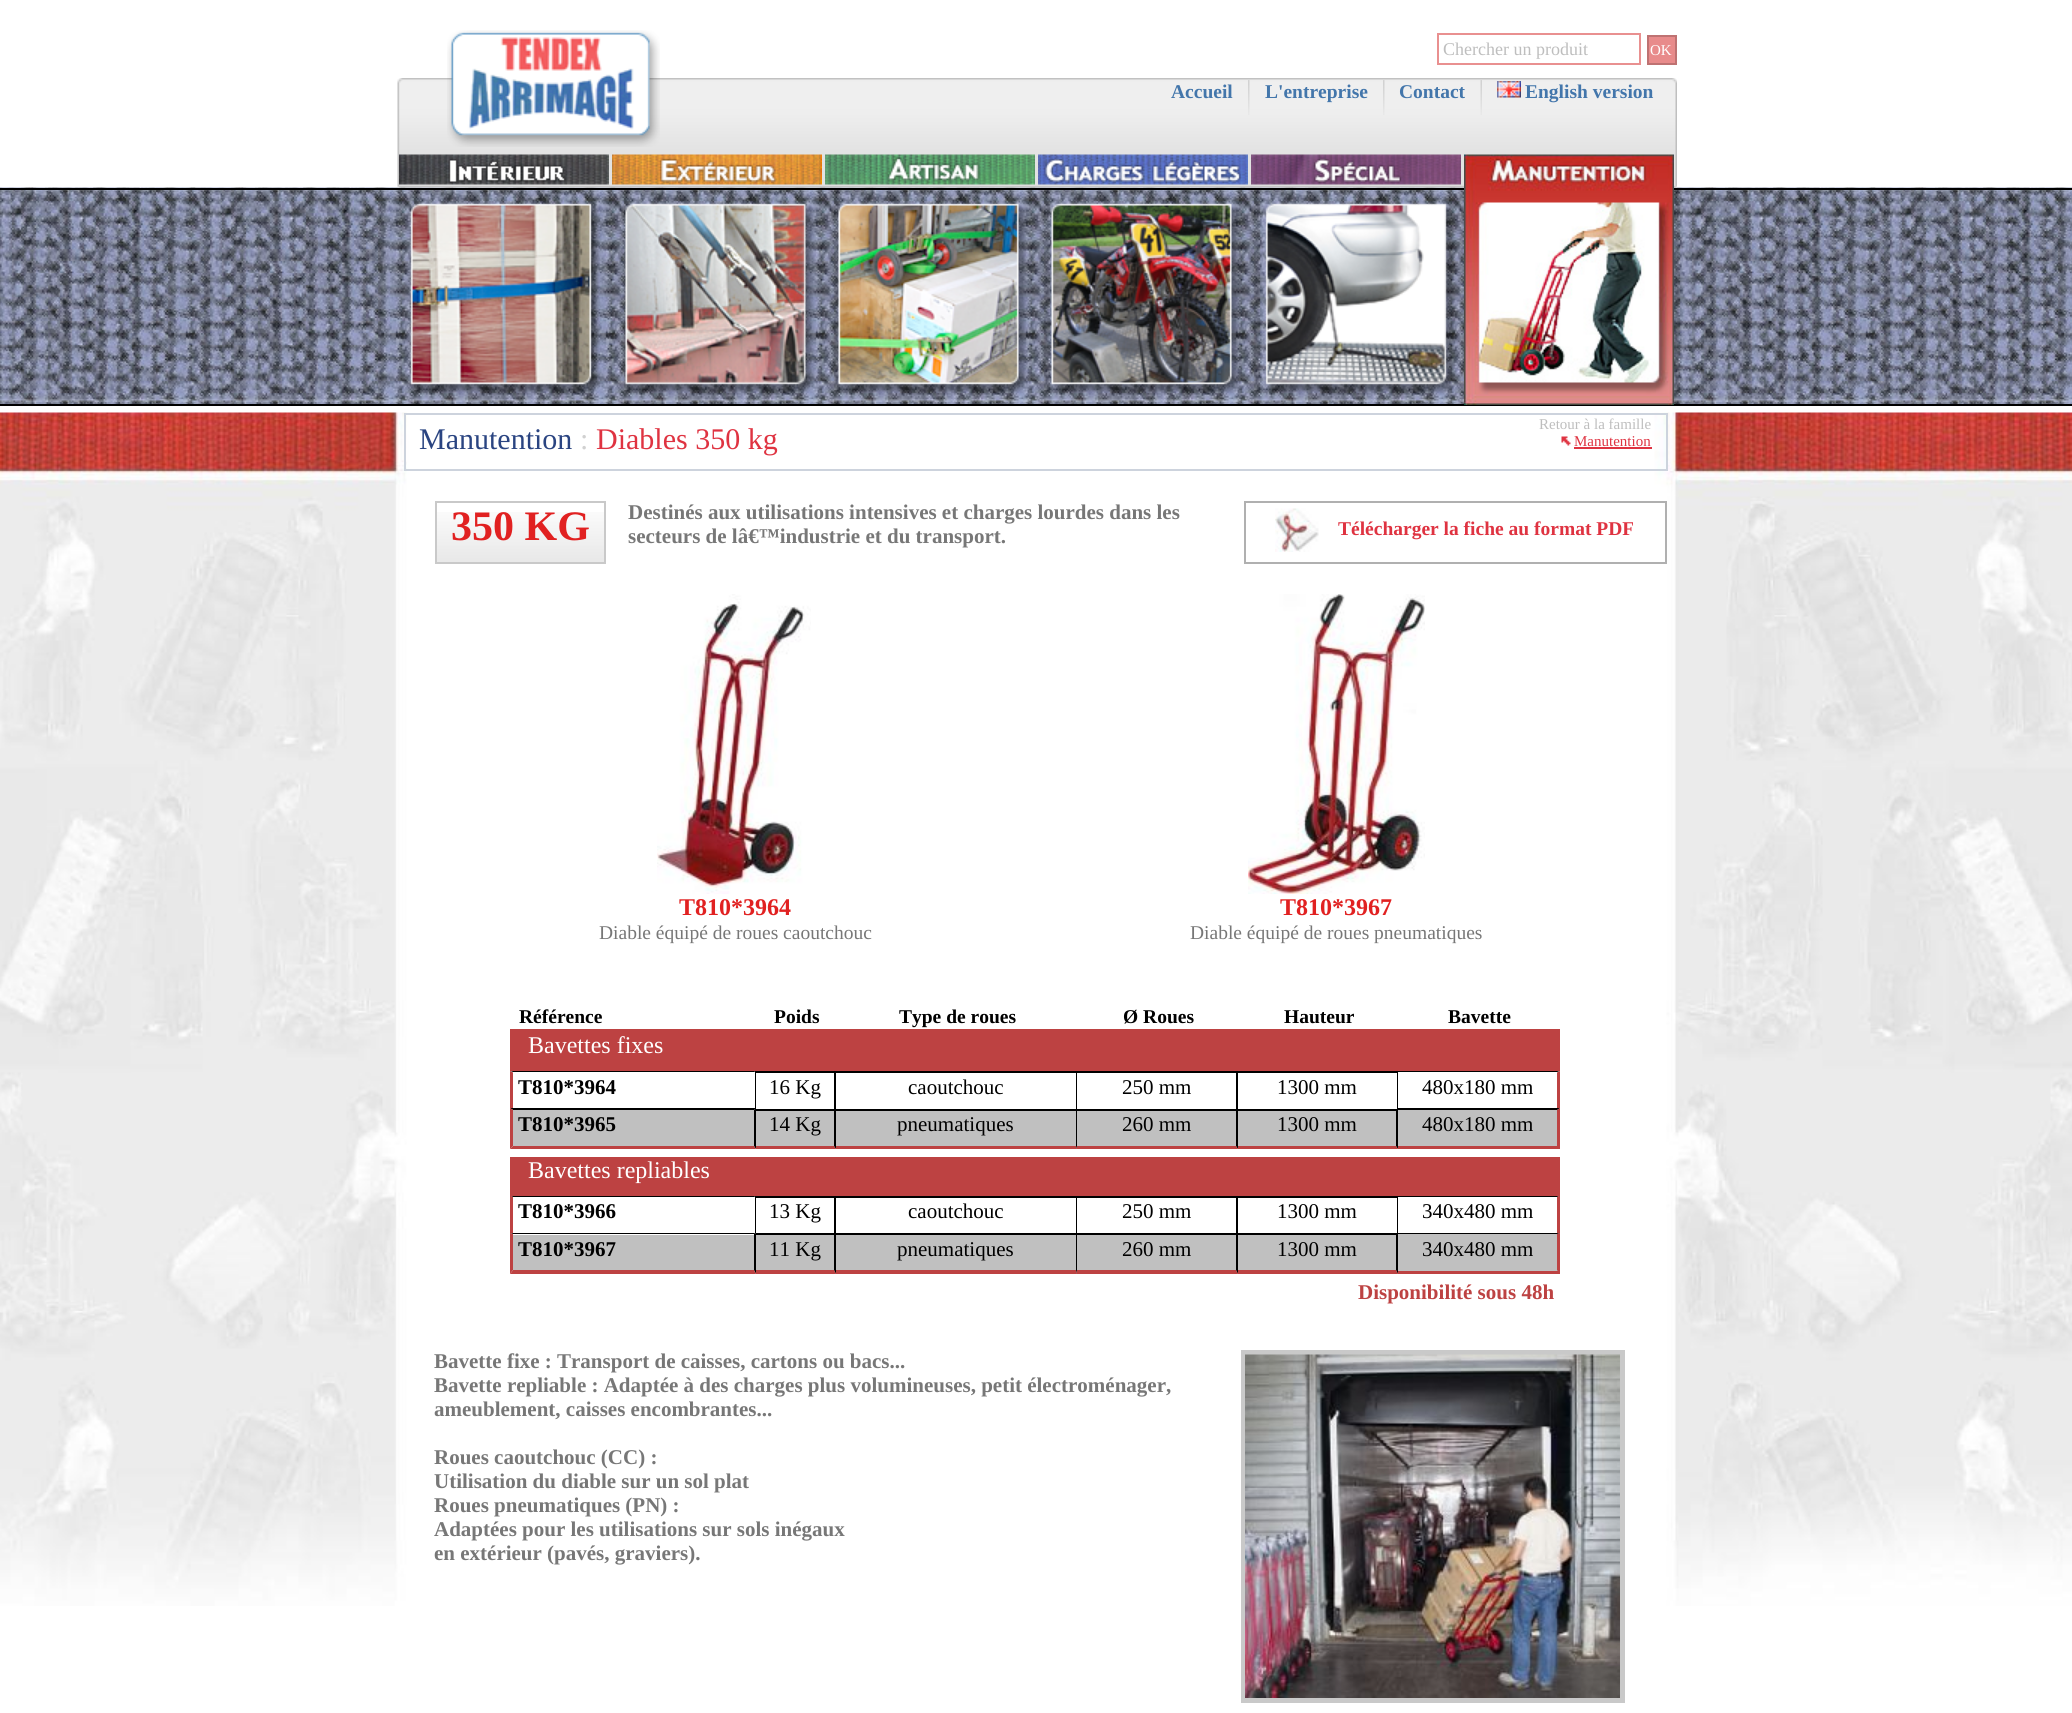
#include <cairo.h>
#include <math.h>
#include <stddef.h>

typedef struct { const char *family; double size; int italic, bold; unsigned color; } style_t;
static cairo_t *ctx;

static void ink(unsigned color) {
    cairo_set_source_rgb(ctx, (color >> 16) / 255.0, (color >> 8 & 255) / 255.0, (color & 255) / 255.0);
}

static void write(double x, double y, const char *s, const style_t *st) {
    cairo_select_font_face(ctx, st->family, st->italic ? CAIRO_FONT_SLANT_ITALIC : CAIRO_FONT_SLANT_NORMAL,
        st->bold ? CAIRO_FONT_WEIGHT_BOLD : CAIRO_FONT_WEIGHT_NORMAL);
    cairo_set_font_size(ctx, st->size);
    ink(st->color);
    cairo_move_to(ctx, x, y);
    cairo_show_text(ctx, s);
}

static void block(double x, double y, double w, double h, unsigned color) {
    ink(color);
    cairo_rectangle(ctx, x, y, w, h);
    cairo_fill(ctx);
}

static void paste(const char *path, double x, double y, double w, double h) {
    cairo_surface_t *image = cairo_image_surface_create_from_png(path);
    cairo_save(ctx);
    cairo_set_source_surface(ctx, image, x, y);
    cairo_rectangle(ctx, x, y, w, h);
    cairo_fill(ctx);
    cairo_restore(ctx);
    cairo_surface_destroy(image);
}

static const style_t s1 = {"Liberation Serif", 18, 0, 0, 0xbebebe};
static const style_t s2 = {"Liberation Serif", 15, 0, 0, 0xffffff};
static const style_t s3 = {"Liberation Serif", 19.5, 0, 1, 0x4376ab};
static const style_t s4 = {"Liberation Serif", 30, 0, 0, 0x2a4481};
static const style_t s5 = {"Liberation Serif", 30, 0, 0, 0xd1d1d1};
static const style_t s6 = {"Liberation Serif", 30, 0, 0, 0xdf3341};
static const style_t s7 = {"Liberation Serif", 15, 0, 0, 0xbebebe};
static const style_t s8 = {"Liberation Serif", 15, 0, 0, 0xdf3341};
static const style_t s9 = {"Liberation Serif", 42, 0, 1, 0xe12121};
static const style_t s10 = {"Liberation Serif", 21, 0, 1, 0x777777};
static const style_t s11 = {"Liberation Serif", 19.5, 0, 1, 0xdf3341};
static const style_t s12 = {"Liberation Serif", 24, 0, 1, 0xe12121};
static const style_t s13 = {"Liberation Serif", 19.5, 0, 0, 0x777777};
static const style_t s14 = {"Liberation Serif", 19.5, 0, 1, 0x000000};
static const style_t s15 = {"Liberation Serif", 24, 0, 0, 0xffffff};
static const style_t s16 = {"Liberation Serif", 21, 0, 1, 0x000000};
static const style_t s17 = {"Liberation Serif", 21, 0, 0, 0x000000};
static const style_t s18 = {"Liberation Serif", 21, 0, 1, 0xbd4242};

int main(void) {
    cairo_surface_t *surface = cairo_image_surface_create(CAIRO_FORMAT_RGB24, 2072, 1713);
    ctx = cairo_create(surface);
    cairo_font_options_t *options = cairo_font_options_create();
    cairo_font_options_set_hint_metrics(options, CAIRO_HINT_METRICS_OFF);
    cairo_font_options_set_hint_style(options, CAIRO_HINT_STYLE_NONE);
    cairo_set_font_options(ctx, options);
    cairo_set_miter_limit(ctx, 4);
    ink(0xffffff);
    cairo_paint(ctx);
    paste("pic12.png", 0, 187, 2072, 217);
    paste("pic1.png", 397, 78, 1280, 110);
    paste("pic2.png", 447, 30, 213, 117);
    cairo_rectangle(ctx, 1438, 34, 202, 30);
    ink(0xe99090);
    cairo_stroke(ctx);
    write(1443, 55, "Chercher un produit", &s1);
    ink(0xe88b8b);
    cairo_rectangle(ctx, 1648, 36, 28, 28);
    cairo_fill_preserve(ctx);
    ink(0xbe7272);
    cairo_stroke(ctx);
    write(1650, 55, "OK", &s2);
    write(1171, 98, "Accueil", &s3);
    paste("pic3.png", 1248, 80, 2, 35);
    write(1265, 98, "L'entreprise", &s3);
    paste("pic3.png", 1383, 80, 2, 35);
    write(1399, 98, "Contact", &s3);
    paste("pic4.png", 1480, 80, 2, 35);
    paste("pic5.png", 1497, 81, 24, 17);
    write(1525, 98, "English version", &s3);
    block(0, 188, 2072, 2, 0x000000);
    paste("pic6.png", 399, 154, 210, 241);
    paste("pic7.png", 612, 154, 210, 241);
    paste("pic8.png", 825, 154, 210, 241);
    paste("pic9.png", 1038, 154, 210, 241);
    paste("pic10.png", 1251, 154, 210, 241);
    block(0, 404, 2072, 2, 0x000000);
    paste("pic11.png", 1464, 154, 210, 251);
    paste("pic13.png", 0, 412, 2072, 1194);
    cairo_rectangle(ctx, 405, 414, 1262, 56);
    ink(0xcdd3dd);
    cairo_stroke(ctx);
    write(419, 449, "Manutention", &s4);
    write(580, 449, ":", &s5);
    write(596, 449, "Diables 350 kg", &s6);
    write(1539, 429, "Retour à la famille", &s7);
    paste("pic14.png", 1561, 436, 10, 10);
    write(1574, 446, "Manutention", &s8);
    block(1574, 447, 78, 2, 0xdf3341);
    paste("pic15.png", 437, 512, 167, 50);
    cairo_rectangle(ctx, 436, 502, 169, 61);
    ink(0xc9c9c9);
    cairo_stroke(ctx);
    write(451, 540, "350 KG", &s9);
    write(628, 519, "Destinés aux utilisations intensives et charges lourdes dans les", &s10);
    write(628, 543, "secteurs de lâ€™industrie et du transport.", &s10);
    cairo_rectangle(ctx, 1245, 502, 421, 61);
    ink(0xb0b0b0);
    cairo_stroke(ctx);
    paste("pic16.png", 1275, 508, 44, 44);
    write(1338, 535, "Télécharger la fiche au format PDF", &s11);
    paste("pic17.png", 657, 594, 154, 300);
    paste("pic18.png", 1248, 594, 177, 300);
    write(679, 915, "T810*3964", &s12);
    write(1280, 915, "T810*3967", &s12);
    write(599, 939, "Diable équipé de roues caoutchouc", &s13);
    write(1190, 939, "Diable équipé de roues pneumatiques", &s13);
    block(510, 1029, 1050, 42, 0xbd4242);
    write(519, 1023, "Référence", &s14);
    write(774, 1023, "Poids", &s14);
    write(899, 1023, "Type de roues", &s14);
    write(1123, 1023, "Ø Roues", &s14);
    write(1284, 1023, "Hauteur", &s14);
    write(1448, 1023, "Bavette", &s14);
    write(528, 1053, "Bavettes fixes", &s15);
    ink(0x000000);
    cairo_new_path(ctx);
    cairo_move_to(ctx, 510, 1071);
    cairo_line_to(ctx, 756, 1071);
    cairo_line_to(ctx, 754, 1072);
    cairo_line_to(ctx, 513, 1072);
    cairo_close_path(ctx);
    cairo_fill(ctx);
    block(755, 1071, 1, 38, 0x000000);
    ink(0xbd4242);
    cairo_new_path(ctx);
    cairo_move_to(ctx, 510, 1108.5);
    cairo_line_to(ctx, 510, 1071);
    cairo_line_to(ctx, 513, 1072.5);
    cairo_line_to(ctx, 513, 1108.5);
    cairo_close_path(ctx);
    cairo_fill(ctx);
    write(518, 1094, "T810*3964", &s16);
    block(756, 1071, 642, 2, 0x000000);
    block(834, 1071, 2, 38, 0x000000);
    write(769, 1094, "16 Kg", &s17);
    block(1076, 1071, 1, 38, 0x000000);
    write(908, 1094, "caoutchouc", &s17);
    block(1236, 1071, 2, 38, 0x000000);
    write(1122, 1094, "250 mm", &s17);
    block(1397, 1071, 1, 38, 0x000000);
    write(1277, 1094, "1300 mm", &s17);
    cairo_new_path(ctx);
    cairo_move_to(ctx, 1398, 1071);
    cairo_line_to(ctx, 1560, 1071);
    cairo_line_to(ctx, 1557, 1072);
    cairo_line_to(ctx, 1398, 1072);
    cairo_close_path(ctx);
    cairo_fill(ctx);
    ink(0xbd4242);
    cairo_new_path(ctx);
    cairo_move_to(ctx, 1560, 1071);
    cairo_line_to(ctx, 1560, 1108.5);
    cairo_line_to(ctx, 1557, 1108.5);
    cairo_line_to(ctx, 1557, 1072.5);
    cairo_close_path(ctx);
    cairo_fill(ctx);
    write(1422, 1094, "480x180 mm", &s17);
    block(513, 1110, 241, 36, 0xc0c0c0);
    ink(0x000000);
    cairo_new_path(ctx);
    cairo_move_to(ctx, 510, 1108);
    cairo_line_to(ctx, 756, 1108);
    cairo_line_to(ctx, 754, 1110);
    cairo_line_to(ctx, 513, 1110);
    cairo_close_path(ctx);
    cairo_fill(ctx);
    cairo_new_path(ctx);
    cairo_move_to(ctx, 756, 1108);
    cairo_line_to(ctx, 756, 1149);
    cairo_line_to(ctx, 754, 1146);
    cairo_line_to(ctx, 754, 1110);
    cairo_close_path(ctx);
    cairo_fill(ctx);
    ink(0xbd4242);
    cairo_new_path(ctx);
    cairo_move_to(ctx, 756, 1149);
    cairo_line_to(ctx, 510, 1149);
    cairo_line_to(ctx, 513, 1146);
    cairo_line_to(ctx, 754, 1146);
    cairo_close_path(ctx);
    cairo_fill(ctx);
    cairo_new_path(ctx);
    cairo_move_to(ctx, 510, 1149);
    cairo_line_to(ctx, 510, 1108);
    cairo_line_to(ctx, 513, 1110);
    cairo_line_to(ctx, 513, 1146);
    cairo_close_path(ctx);
    cairo_fill(ctx);
    write(518, 1131, "T810*3965", &s16);
    block(756, 1111, 642, 38, 0xc0c0c0);
    block(756, 1109, 642, 2, 0x000000);
    cairo_new_path(ctx);
    cairo_move_to(ctx, 836, 1108);
    cairo_line_to(ctx, 836, 1149);
    cairo_line_to(ctx, 834, 1146);
    cairo_line_to(ctx, 834, 1110);
    cairo_close_path(ctx);
    cairo_fill(ctx);
    ink(0xbd4242);
    cairo_new_path(ctx);
    cairo_move_to(ctx, 836, 1149);
    cairo_line_to(ctx, 756, 1149);
    cairo_line_to(ctx, 756, 1146);
    cairo_line_to(ctx, 834, 1146);
    cairo_close_path(ctx);
    cairo_fill(ctx);
    write(769, 1131, "14 Kg", &s17);
    cairo_new_path(ctx);
    cairo_move_to(ctx, 1077, 1108);
    cairo_line_to(ctx, 1077, 1149);
    cairo_line_to(ctx, 1076, 1146);
    cairo_line_to(ctx, 1076, 1110);
    cairo_close_path(ctx);
    cairo_fill(ctx);
    ink(0xbd4242);
    cairo_new_path(ctx);
    cairo_move_to(ctx, 1077, 1149);
    cairo_line_to(ctx, 836, 1149);
    cairo_line_to(ctx, 836, 1146);
    cairo_line_to(ctx, 1076, 1146);
    cairo_close_path(ctx);
    cairo_fill(ctx);
    write(897, 1131, "pneumatiques", &s17);
    cairo_new_path(ctx);
    cairo_move_to(ctx, 1238, 1108);
    cairo_line_to(ctx, 1238, 1149);
    cairo_line_to(ctx, 1236, 1146);
    cairo_line_to(ctx, 1236, 1110);
    cairo_close_path(ctx);
    cairo_fill(ctx);
    ink(0xbd4242);
    cairo_new_path(ctx);
    cairo_move_to(ctx, 1238, 1149);
    cairo_line_to(ctx, 1077, 1149);
    cairo_line_to(ctx, 1077, 1146);
    cairo_line_to(ctx, 1236, 1146);
    cairo_close_path(ctx);
    cairo_fill(ctx);
    write(1122, 1131, "260 mm", &s17);
    cairo_new_path(ctx);
    cairo_move_to(ctx, 1398, 1108);
    cairo_line_to(ctx, 1398, 1149);
    cairo_line_to(ctx, 1396, 1146);
    cairo_line_to(ctx, 1396, 1110);
    cairo_close_path(ctx);
    cairo_fill(ctx);
    ink(0xbd4242);
    cairo_new_path(ctx);
    cairo_move_to(ctx, 1398, 1149);
    cairo_line_to(ctx, 1238, 1149);
    cairo_line_to(ctx, 1238, 1146);
    cairo_line_to(ctx, 1396, 1146);
    cairo_close_path(ctx);
    cairo_fill(ctx);
    write(1277, 1131, "1300 mm", &s17);
    block(1398, 1109, 161, 37, 0xc0c0c0);
    ink(0x000000);
    cairo_new_path(ctx);
    cairo_move_to(ctx, 1398, 1108);
    cairo_line_to(ctx, 1560, 1108);
    cairo_line_to(ctx, 1557, 1110);
    cairo_line_to(ctx, 1398, 1110);
    cairo_close_path(ctx);
    cairo_fill(ctx);
    ink(0xbd4242);
    cairo_new_path(ctx);
    cairo_move_to(ctx, 1560, 1108);
    cairo_line_to(ctx, 1560, 1149);
    cairo_line_to(ctx, 1557, 1146);
    cairo_line_to(ctx, 1557, 1110);
    cairo_close_path(ctx);
    cairo_fill(ctx);
    block(1398, 1146, 162, 3, 0xbd4242);
    write(1422, 1131, "480x180 mm", &s17);
    block(510, 1157, 1050, 39, 0xbd4242);
    write(528, 1178, "Bavettes repliables", &s15);
    ink(0x000000);
    cairo_new_path(ctx);
    cairo_move_to(ctx, 510, 1196);
    cairo_line_to(ctx, 756, 1196);
    cairo_line_to(ctx, 754, 1197);
    cairo_line_to(ctx, 513, 1197);
    cairo_close_path(ctx);
    cairo_fill(ctx);
    block(755, 1196, 1, 37, 0x000000);
    ink(0xbd4242);
    cairo_new_path(ctx);
    cairo_move_to(ctx, 510, 1233);
    cairo_line_to(ctx, 510, 1195.5);
    cairo_line_to(ctx, 513, 1197);
    cairo_line_to(ctx, 513, 1233);
    cairo_close_path(ctx);
    cairo_fill(ctx);
    write(518, 1218, "T810*3966", &s16);
    block(756, 1196, 642, 2, 0x000000);
    block(834, 1196, 2, 37, 0x000000);
    write(769, 1218, "13 Kg", &s17);
    block(1076, 1196, 1, 37, 0x000000);
    write(908, 1218, "caoutchouc", &s17);
    block(1236, 1196, 2, 37, 0x000000);
    write(1122, 1218, "250 mm", &s17);
    block(1397, 1196, 1, 37, 0x000000);
    write(1277, 1218, "1300 mm", &s17);
    cairo_new_path(ctx);
    cairo_move_to(ctx, 1398, 1196);
    cairo_line_to(ctx, 1560, 1196);
    cairo_line_to(ctx, 1557, 1197);
    cairo_line_to(ctx, 1398, 1197);
    cairo_close_path(ctx);
    cairo_fill(ctx);
    ink(0xbd4242);
    cairo_new_path(ctx);
    cairo_move_to(ctx, 1560, 1195.5);
    cairo_line_to(ctx, 1560, 1233);
    cairo_line_to(ctx, 1557, 1233);
    cairo_line_to(ctx, 1557, 1197);
    cairo_close_path(ctx);
    cairo_fill(ctx);
    write(1422, 1218, "340x480 mm", &s17);
    block(513, 1235, 242, 36, 0xc0c0c0);
    ink(0x000000);
    cairo_new_path(ctx);
    cairo_move_to(ctx, 510, 1233);
    cairo_line_to(ctx, 756, 1233);
    cairo_line_to(ctx, 754, 1234);
    cairo_line_to(ctx, 513, 1234);
    cairo_close_path(ctx);
    cairo_fill(ctx);
    cairo_new_path(ctx);
    cairo_move_to(ctx, 756, 1233);
    cairo_line_to(ctx, 756, 1274);
    cairo_line_to(ctx, 754, 1270);
    cairo_line_to(ctx, 754, 1234);
    cairo_close_path(ctx);
    cairo_fill(ctx);
    ink(0xbd4242);
    cairo_new_path(ctx);
    cairo_move_to(ctx, 756, 1274);
    cairo_line_to(ctx, 510, 1274);
    cairo_line_to(ctx, 513, 1270);
    cairo_line_to(ctx, 754, 1270);
    cairo_close_path(ctx);
    cairo_fill(ctx);
    cairo_new_path(ctx);
    cairo_move_to(ctx, 510, 1274);
    cairo_line_to(ctx, 510, 1233);
    cairo_line_to(ctx, 513, 1234);
    cairo_line_to(ctx, 513, 1270);
    cairo_close_path(ctx);
    cairo_fill(ctx);
    write(518, 1256, "T810*3967", &s16);
    block(756, 1235, 642, 39, 0xc0c0c0);
    block(756, 1233, 642, 2, 0x000000);
    cairo_new_path(ctx);
    cairo_move_to(ctx, 836, 1233);
    cairo_line_to(ctx, 836, 1274);
    cairo_line_to(ctx, 834, 1270);
    cairo_line_to(ctx, 834, 1234);
    cairo_close_path(ctx);
    cairo_fill(ctx);
    ink(0xbd4242);
    cairo_new_path(ctx);
    cairo_move_to(ctx, 836, 1274);
    cairo_line_to(ctx, 756, 1274);
    cairo_line_to(ctx, 756, 1270);
    cairo_line_to(ctx, 834, 1270);
    cairo_close_path(ctx);
    cairo_fill(ctx);
    write(769, 1256, "11 Kg", &s17);
    cairo_new_path(ctx);
    cairo_move_to(ctx, 1077, 1233);
    cairo_line_to(ctx, 1077, 1274);
    cairo_line_to(ctx, 1076, 1270);
    cairo_line_to(ctx, 1076, 1234);
    cairo_close_path(ctx);
    cairo_fill(ctx);
    ink(0xbd4242);
    cairo_new_path(ctx);
    cairo_move_to(ctx, 1077, 1274);
    cairo_line_to(ctx, 836, 1274);
    cairo_line_to(ctx, 836, 1270);
    cairo_line_to(ctx, 1076, 1270);
    cairo_close_path(ctx);
    cairo_fill(ctx);
    write(897, 1256, "pneumatiques", &s17);
    cairo_new_path(ctx);
    cairo_move_to(ctx, 1238, 1233);
    cairo_line_to(ctx, 1238, 1274);
    cairo_line_to(ctx, 1236, 1270);
    cairo_line_to(ctx, 1236, 1234);
    cairo_close_path(ctx);
    cairo_fill(ctx);
    ink(0xbd4242);
    cairo_new_path(ctx);
    cairo_move_to(ctx, 1238, 1274);
    cairo_line_to(ctx, 1077, 1274);
    cairo_line_to(ctx, 1077, 1270);
    cairo_line_to(ctx, 1236, 1270);
    cairo_close_path(ctx);
    cairo_fill(ctx);
    write(1122, 1256, "260 mm", &s17);
    cairo_new_path(ctx);
    cairo_move_to(ctx, 1398, 1233);
    cairo_line_to(ctx, 1398, 1274);
    cairo_line_to(ctx, 1396, 1270);
    cairo_line_to(ctx, 1396, 1234);
    cairo_close_path(ctx);
    cairo_fill(ctx);
    ink(0xbd4242);
    cairo_new_path(ctx);
    cairo_move_to(ctx, 1398, 1274);
    cairo_line_to(ctx, 1238, 1274);
    cairo_line_to(ctx, 1238, 1270);
    cairo_line_to(ctx, 1396, 1270);
    cairo_close_path(ctx);
    cairo_fill(ctx);
    write(1277, 1256, "1300 mm", &s17);
    block(1398, 1233, 162, 38, 0xc0c0c0);
    ink(0x000000);
    cairo_new_path(ctx);
    cairo_move_to(ctx, 1398, 1233);
    cairo_line_to(ctx, 1560, 1233);
    cairo_line_to(ctx, 1557, 1234);
    cairo_line_to(ctx, 1398, 1234);
    cairo_close_path(ctx);
    cairo_fill(ctx);
    ink(0xbd4242);
    cairo_new_path(ctx);
    cairo_move_to(ctx, 1560, 1233);
    cairo_line_to(ctx, 1560, 1274);
    cairo_line_to(ctx, 1557, 1270);
    cairo_line_to(ctx, 1557, 1234);
    cairo_close_path(ctx);
    cairo_fill(ctx);
    block(1398, 1271, 162, 3, 0xbd4242);
    write(1422, 1256, "340x480 mm", &s17);
    write(1358, 1299, "Disponibilité sous 48h", &s18);
    write(434, 1368, "Bavette fixe : Transport de caisses, cartons ou bacs...", &s10);
    write(434, 1392, "Bavette repliable : Adaptée à des charges plus volumineuses, petit électroménager,", &s10);
    write(434, 1416, "ameublement, caisses encombrantes...", &s10);
    write(434, 1464, "Roues caoutchouc (CC) :", &s10);
    write(434, 1488, "Utilisation du diable sur un sol plat", &s10);
    write(434, 1512, "Roues pneumatiques (PN) :", &s10);
    write(434, 1536, "Adaptées pour les utilisations sur sols inégaux", &s10);
    write(434, 1560, "en extérieur (pavés, graviers).", &s10);
    cairo_rectangle(ctx, 1243.5, 1352.5, 379, 348);
    ink(0xc9c9c9);
    cairo_set_line_width(ctx, 5);
    cairo_stroke(ctx);
    paste("pic19.png", 1245, 1354, 375, 344);
    cairo_surface_write_to_png(surface, "screenshot.png");
    cairo_font_options_destroy(options);
    cairo_destroy(ctx);
    cairo_surface_destroy(surface);
    return 0;
}
